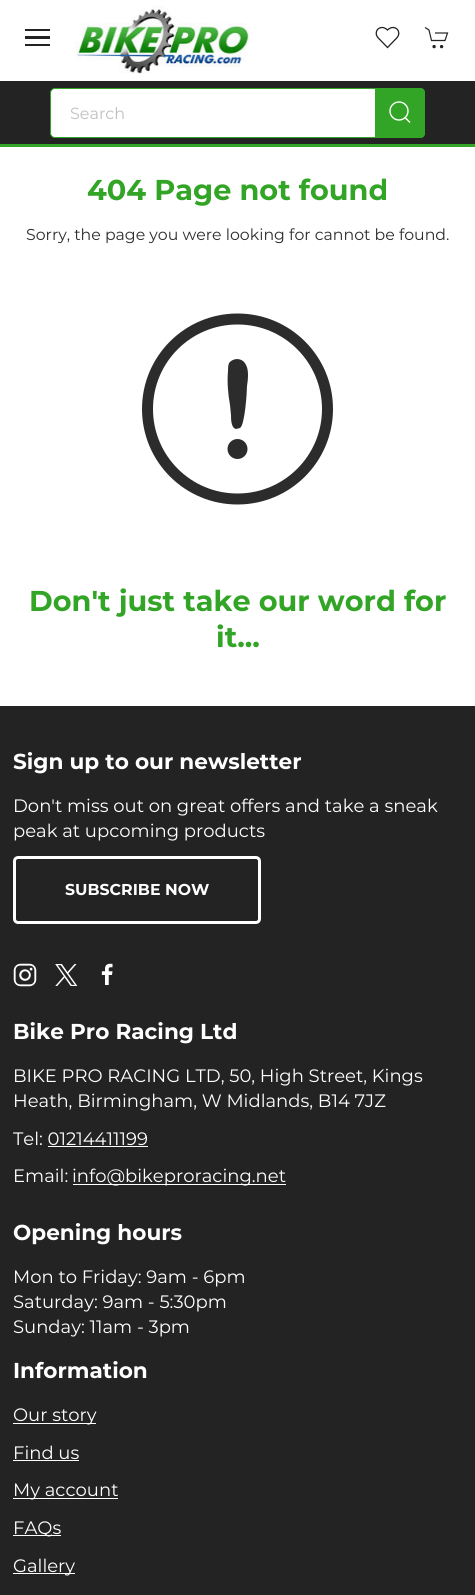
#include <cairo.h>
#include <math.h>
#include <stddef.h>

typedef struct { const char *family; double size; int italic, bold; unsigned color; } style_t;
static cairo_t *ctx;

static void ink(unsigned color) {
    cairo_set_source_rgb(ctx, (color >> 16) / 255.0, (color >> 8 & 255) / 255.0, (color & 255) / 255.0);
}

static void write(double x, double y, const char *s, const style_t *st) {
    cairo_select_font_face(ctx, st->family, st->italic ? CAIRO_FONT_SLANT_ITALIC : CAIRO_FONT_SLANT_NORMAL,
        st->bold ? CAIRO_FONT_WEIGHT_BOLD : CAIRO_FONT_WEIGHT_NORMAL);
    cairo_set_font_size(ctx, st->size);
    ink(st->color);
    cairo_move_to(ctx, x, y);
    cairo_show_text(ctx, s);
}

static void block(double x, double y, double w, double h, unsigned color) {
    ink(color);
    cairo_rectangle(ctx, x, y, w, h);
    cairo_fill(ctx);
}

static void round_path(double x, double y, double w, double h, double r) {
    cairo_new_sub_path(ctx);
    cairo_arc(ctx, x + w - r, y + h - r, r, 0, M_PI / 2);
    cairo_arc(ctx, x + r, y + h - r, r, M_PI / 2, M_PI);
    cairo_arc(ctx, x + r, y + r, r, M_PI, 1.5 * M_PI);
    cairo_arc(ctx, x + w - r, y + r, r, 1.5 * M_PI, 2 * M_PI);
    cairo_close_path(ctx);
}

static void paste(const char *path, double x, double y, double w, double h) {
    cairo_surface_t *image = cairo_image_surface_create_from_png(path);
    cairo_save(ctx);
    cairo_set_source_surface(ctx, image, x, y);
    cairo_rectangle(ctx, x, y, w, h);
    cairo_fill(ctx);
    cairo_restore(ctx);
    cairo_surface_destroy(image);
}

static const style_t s1 = {"Montserrat", 16, 0, 0, 0xc0bfbe};
static const style_t s2 = {"Montserrat", 28.75, 0, 1, 0x32a526};
static const style_t s3 = {"Montserrat", 15.75, 0, 0, 0x2c2c2c};
static const style_t s4 = {"Montserrat", 21.6, 0, 1, 0xffffff};
static const style_t s5 = {"Montserrat", 18, 0, 0, 0xffffff};
static const style_t s6 = {"Montserrat", 15.75, 0, 1, 0xffffff};

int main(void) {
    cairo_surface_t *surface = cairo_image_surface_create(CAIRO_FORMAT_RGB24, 475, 1595);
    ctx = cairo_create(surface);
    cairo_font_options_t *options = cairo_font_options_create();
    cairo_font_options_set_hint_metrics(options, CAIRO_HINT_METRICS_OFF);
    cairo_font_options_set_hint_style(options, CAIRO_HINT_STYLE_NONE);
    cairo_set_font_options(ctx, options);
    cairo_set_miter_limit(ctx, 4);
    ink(0xffffff);
    cairo_paint(ctx);
    block(0, 81, 475, 63, 0x232323);
    block(0, 144, 475, 3, 0x32a526);
    block(25, 29, 25, 2, 0x232323);
    block(25, 36, 25, 3, 0x232323);
    block(25, 44, 25, 2, 0x232323);
    paste("pic1.png", 75, 5, 175, 69);
    paste("pic2.png", 375, 26, 25, 23);
    cairo_arc(ctx, 434.1, 46.6, 1.7, 0, 2 * M_PI);
    cairo_fill(ctx);
    cairo_arc(ctx, 441.6, 46.6, 1.7, 0, 2 * M_PI);
    cairo_fill(ctx);
    cairo_new_path(ctx);
    cairo_move_to(ctx, 425, 27.5);
    cairo_line_to(ctx, 429, 30);
    cairo_line_to(ctx, 431.5, 40.5);
    cairo_line_to(ctx, 445, 40.5);
    cairo_line_to(ctx, 447.5, 33);
    cairo_line_to(ctx, 435, 33);
    cairo_set_line_width(ctx, 1.2);
    cairo_stroke(ctx);
    ink(0xffffff);
    round_path(50.5, 88.5, 374, 49, 4.5);
    cairo_fill_preserve(ctx);
    ink(0x32a526);
    cairo_set_line_width(ctx, 1);
    cairo_stroke(ctx);
    write(70, 119, "Search", &s1);
    ink(0x32a526);
    cairo_new_path(ctx);
    cairo_move_to(ctx, 375, 88);
    cairo_line_to(ctx, 420, 88);
    cairo_curve_to(ctx, 423, 88, 425, 90, 425, 93);
    cairo_line_to(ctx, 425, 133);
    cairo_curve_to(ctx, 425, 136, 423, 138, 420, 138);
    cairo_line_to(ctx, 375, 138);
    cairo_close_path(ctx);
    cairo_fill(ctx);
    cairo_arc(ctx, 399, 111, 9, 0, 2 * M_PI);
    ink(0xffffff);
    cairo_set_line_width(ctx, 1.4);
    cairo_stroke(ctx);
    cairo_new_path(ctx);
    cairo_move_to(ctx, 405, 117.5);
    cairo_line_to(ctx, 410, 122.5);
    cairo_close_path(ctx);
    cairo_stroke(ctx);
    write(87, 200, "404 Page not found", &s2);
    write(26, 240, "Sorry, the page you were looking for cannot be found.", &s3);
    cairo_new_path(ctx);
    cairo_arc(ctx, 237.5, 449, 10, 0, 2 * M_PI);
    cairo_fill(ctx);
    cairo_arc(ctx, 237.5, 409, 90, 0, 2 * M_PI);
    cairo_set_line_width(ctx, 11);
    cairo_stroke(ctx);
    cairo_new_path(ctx);
    cairo_move_to(ctx, 247, 386);
    cairo_curve_to(ctx, 247, 391, 245, 425, 240, 428);
    cairo_line_to(ctx, 236, 429);
    cairo_curve_to(ctx, 231, 428, 231, 419, 231, 415);
    cairo_line_to(ctx, 230, 405);
    cairo_curve_to(ctx, 228, 394, 227, 382, 228, 371);
    cairo_curve_to(ctx, 228, 368, 228, 366, 229, 363);
    cairo_curve_to(ctx, 234, 357, 243, 358, 246, 365);
    cairo_curve_to(ctx, 249, 370, 248, 380, 247, 386);
    cairo_close_path(ctx);
    cairo_fill(ctx);
    write(29, 611, "Don't just take our word for", &s2);
    write(216, 647, "it...", &s2);
    block(0, 706, 475, 889, 0x232323);
    write(13, 769, "Sign up to our newsletter", &s4);
    write(13, 812, "Don't miss out on great offers and take a sneak", &s5);
    write(13, 837, "peak at upcoming products", &s5);
    round_path(14.5, 857.5, 245, 65, 3.5);
    cairo_set_line_width(ctx, 3);
    cairo_stroke(ctx);
    write(65, 895, "SUBSCRIBE NOW", &s6);
    paste("pic3.png", 13, 963, 24, 24);
    paste("pic4.png", 55, 964, 23, 22);
    paste("pic5.png", 101, 963, 12, 22);
    write(13, 1039, "Bike Pro Racing Ltd", &s4);
    write(13, 1082, "BIKE PRO RACING LTD, 50, High Street, Kings", &s5);
    write(13, 1107, "Heath, Birmingham, W Midlands, B14 7JZ", &s5);
    write(13, 1145, "Tel: 01214411199", &s5);
    block(48, 1146, 100, 1, 0xffffff);
    write(13, 1182, "Email:", &s5);
    block(73, 1184, 213, 1, 0xffffff);
    write(72, 1182, "info@bikeproracing.net", &s5);
    write(13, 1240, "Opening hours", &s4);
    write(13, 1283, "Mon to Friday: 9am - 6pm", &s5);
    write(13, 1308, "Saturday: 9am - 5:30pm", &s5);
    write(13, 1333, "Sunday: 11am - 3pm", &s5);
    write(13, 1378, "Information", &s4);
    block(13, 1423, 83, 1, 0xffffff);
    write(13, 1421, "Our story", &s5);
    write(13, 1459, "Find us", &s5);
    block(13, 1460, 66, 1, 0xffffff);
    block(13, 1498, 105, 1, 0xffffff);
    write(13, 1496, "My account", &s5);
    block(13, 1535, 48, 1, 0xffffff);
    write(13, 1534, "FAQs", &s5);
    block(13, 1573, 62, 1, 0xffffff);
    write(13, 1572, "Gallery", &s5);
    cairo_surface_write_to_png(surface, "screenshot.png");
    cairo_font_options_destroy(options);
    cairo_destroy(ctx);
    cairo_surface_destroy(surface);
    return 0;
}
